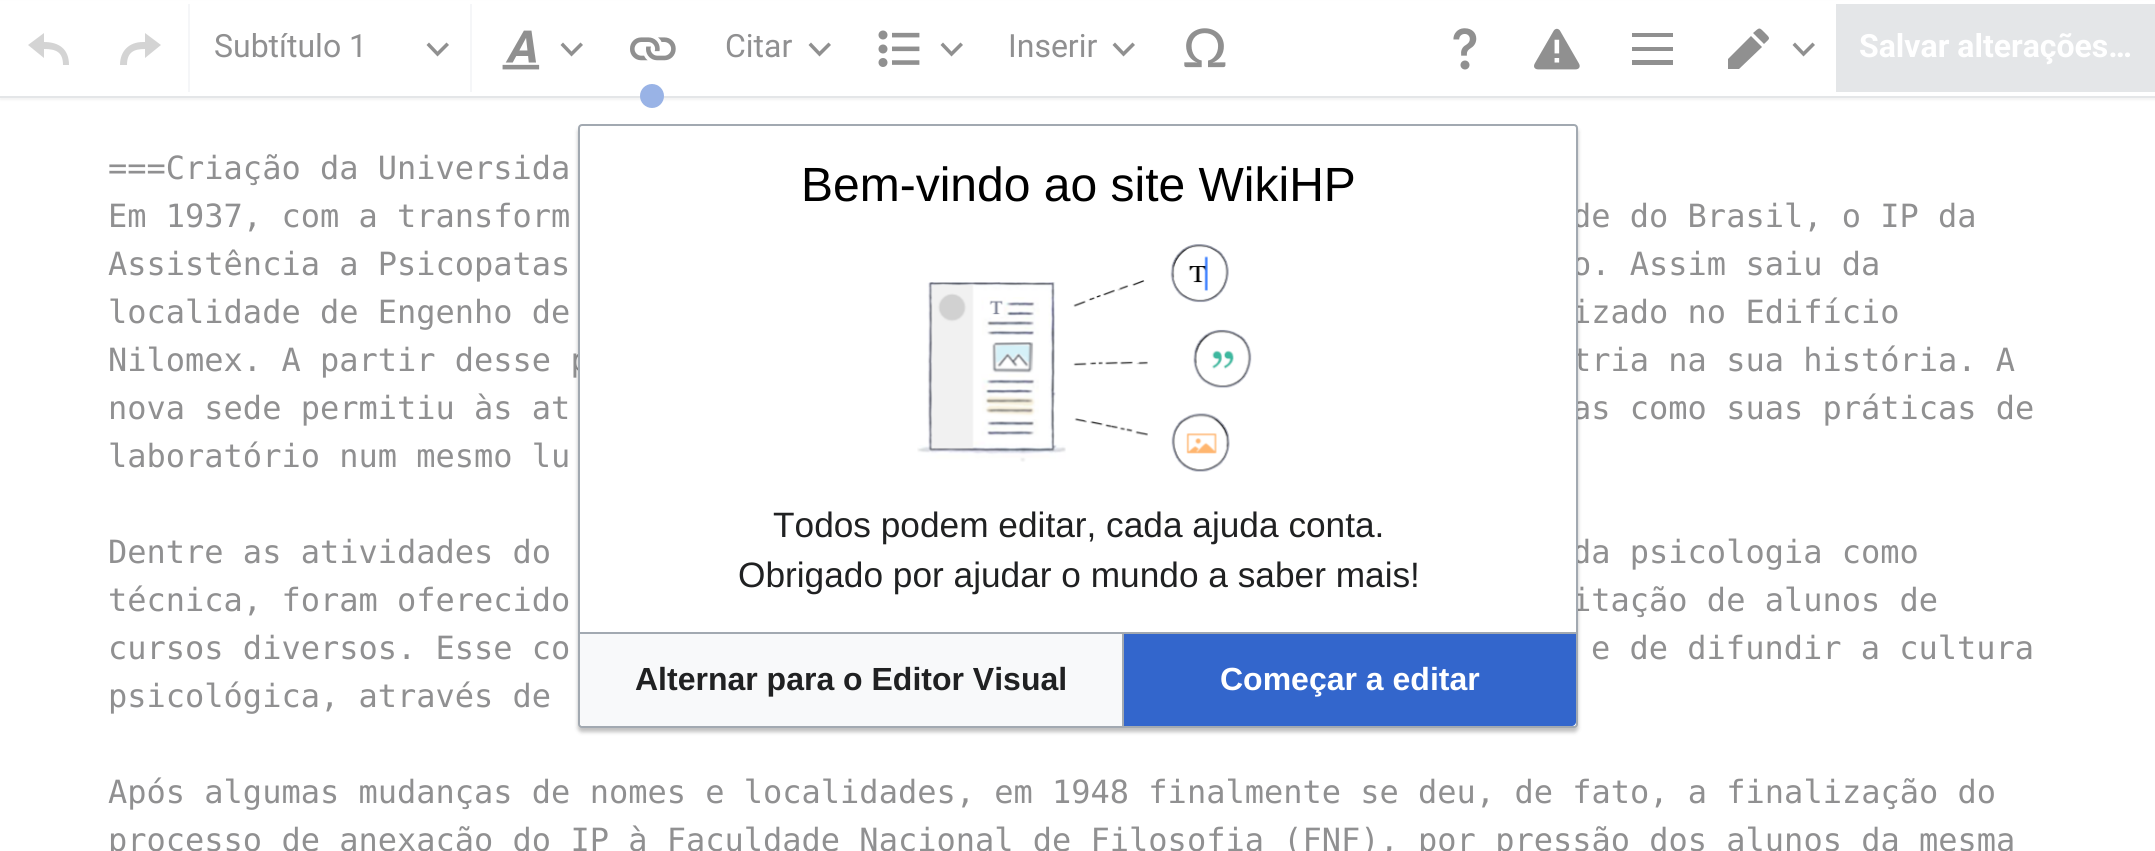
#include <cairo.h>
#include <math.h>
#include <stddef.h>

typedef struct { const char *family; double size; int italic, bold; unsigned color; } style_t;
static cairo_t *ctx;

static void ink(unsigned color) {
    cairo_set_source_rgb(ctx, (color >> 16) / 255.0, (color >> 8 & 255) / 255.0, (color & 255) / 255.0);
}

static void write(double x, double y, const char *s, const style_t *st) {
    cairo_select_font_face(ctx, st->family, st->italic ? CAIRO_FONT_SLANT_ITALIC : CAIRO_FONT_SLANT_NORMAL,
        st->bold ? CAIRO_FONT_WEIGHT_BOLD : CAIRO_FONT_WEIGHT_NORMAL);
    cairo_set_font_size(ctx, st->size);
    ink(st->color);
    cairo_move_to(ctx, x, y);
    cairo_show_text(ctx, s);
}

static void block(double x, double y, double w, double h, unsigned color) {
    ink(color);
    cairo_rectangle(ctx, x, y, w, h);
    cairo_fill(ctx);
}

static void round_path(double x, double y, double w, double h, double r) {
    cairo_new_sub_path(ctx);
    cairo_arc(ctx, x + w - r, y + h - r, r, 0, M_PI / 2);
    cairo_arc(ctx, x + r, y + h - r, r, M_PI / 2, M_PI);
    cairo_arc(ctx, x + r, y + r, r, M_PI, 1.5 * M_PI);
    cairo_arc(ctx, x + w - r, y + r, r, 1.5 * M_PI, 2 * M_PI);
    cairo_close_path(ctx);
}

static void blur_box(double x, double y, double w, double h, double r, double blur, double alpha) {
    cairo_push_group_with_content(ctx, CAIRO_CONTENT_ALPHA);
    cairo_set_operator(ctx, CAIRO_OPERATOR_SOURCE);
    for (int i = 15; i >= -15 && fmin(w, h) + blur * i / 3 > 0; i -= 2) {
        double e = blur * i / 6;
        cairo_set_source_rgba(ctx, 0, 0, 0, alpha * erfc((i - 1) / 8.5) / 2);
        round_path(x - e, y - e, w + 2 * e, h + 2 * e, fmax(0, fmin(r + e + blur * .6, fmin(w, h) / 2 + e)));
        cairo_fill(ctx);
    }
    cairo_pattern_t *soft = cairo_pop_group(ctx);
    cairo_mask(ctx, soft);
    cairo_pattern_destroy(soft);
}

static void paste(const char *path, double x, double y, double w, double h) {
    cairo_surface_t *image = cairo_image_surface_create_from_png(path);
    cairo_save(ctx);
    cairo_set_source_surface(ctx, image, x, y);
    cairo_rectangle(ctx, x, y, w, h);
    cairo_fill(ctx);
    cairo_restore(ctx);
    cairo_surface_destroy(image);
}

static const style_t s1 = {"Roboto", 32, 0, 0, 0x909091};
static const style_t s2 = {"Roboto", 32, 0, 1, 0xffffff};
static const style_t s3 = {"DejaVu Sans Mono", 32, 0, 0, 0x909091};
static const style_t s4 = {"Liberation Sans", 48, 0, 0, 0x000000};
static const style_t s5 = {"Liberation Sans", 35.25, 0, 0, 0x202122};
static const style_t s6 = {"Liberation Sans", 32, 0, 1, 0x202122};
static const style_t s7 = {"Liberation Sans", 32, 0, 1, 0xffffff};

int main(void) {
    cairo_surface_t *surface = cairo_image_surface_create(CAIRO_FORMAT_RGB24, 2155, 851);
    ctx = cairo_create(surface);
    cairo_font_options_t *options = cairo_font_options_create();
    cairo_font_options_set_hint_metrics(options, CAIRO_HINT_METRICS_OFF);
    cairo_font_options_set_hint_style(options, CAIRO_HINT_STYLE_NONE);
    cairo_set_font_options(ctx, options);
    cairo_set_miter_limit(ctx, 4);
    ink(0xffffff);
    cairo_paint(ctx);
    ink(0x808080);
    blur_box(0, 2, 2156, 98, 0, 1, 0.1);
    block(0, 1, 2155, 95, 0xffffff);
    block(0, 96, 2155, 2, 0xe4e6e8);
    ink(0xd4d4d4);
    cairo_new_path(ctx);
    cairo_move_to(ctx, 28, 45);
    cairo_line_to(ctx, 44, 58);
    cairo_line_to(ctx, 44, 49);
    cairo_curve_to(ctx, 56, 49, 63, 52, 63, 65);
    cairo_line_to(ctx, 69, 65);
    cairo_curve_to(ctx, 69, 49, 59, 42, 44, 42);
    cairo_line_to(ctx, 44, 33);
    cairo_close_path(ctx);
    cairo_fill(ctx);
    cairo_new_path(ctx);
    cairo_move_to(ctx, 161, 45);
    cairo_line_to(ctx, 145, 33);
    cairo_line_to(ctx, 145, 58);
    cairo_close_path(ctx);
    cairo_move_to(ctx, 145, 42);
    cairo_line_to(ctx, 145, 49);
    cairo_curve_to(ctx, 134, 49, 127, 52, 127, 65);
    cairo_line_to(ctx, 120, 65);
    cairo_curve_to(ctx, 120, 51, 129, 42, 143, 42);
    cairo_close_path(ctx);
    cairo_fill(ctx);
    block(470, 4, 2, 88, 0xf5f6f8);
    block(188, 4, 2, 88, 0xf5f6f8);
    write(214, 57, "Subtítulo 1", &s1);
    ink(0x909090);
    cairo_new_path(ctx);
    cairo_move_to(ctx, 446.5, 42.5);
    cairo_line_to(ctx, 437.5, 51.5);
    cairo_line_to(ctx, 429, 42.5);
    cairo_line_to(ctx, 426.5, 45);
    cairo_line_to(ctx, 437.5, 56.5);
    cairo_line_to(ctx, 449, 45);
    cairo_close_path(ctx);
    cairo_fill(ctx);
    paste("pic1.png", 502, 30, 38, 40);
    cairo_new_path(ctx);
    cairo_move_to(ctx, 580.5, 42.5);
    cairo_line_to(ctx, 571.5, 51.5);
    cairo_line_to(ctx, 563, 42.5);
    cairo_line_to(ctx, 560.5, 45);
    cairo_line_to(ctx, 571.5, 56.5);
    cairo_line_to(ctx, 583, 45);
    cairo_close_path(ctx);
    cairo_fill(ctx);
    paste("pic2.png", 630, 37, 46, 24);
    ink(0x99b3e6);
    cairo_arc(ctx, 652, 96, 12, 0, 2 * M_PI);
    cairo_fill(ctx);
    write(725, 57, "Citar", &s1);
    ink(0x909090);
    cairo_new_path(ctx);
    cairo_move_to(ctx, 828.5, 42.5);
    cairo_line_to(ctx, 819.5, 51.5);
    cairo_line_to(ctx, 811, 42.5);
    cairo_line_to(ctx, 808.5, 45);
    cairo_line_to(ctx, 819.5, 56.5);
    cairo_line_to(ctx, 831, 45);
    cairo_close_path(ctx);
    cairo_fill(ctx);
    paste("pic3.png", 878, 30, 42, 37);
    cairo_new_path(ctx);
    cairo_move_to(ctx, 960.5, 42.5);
    cairo_line_to(ctx, 951.5, 51.5);
    cairo_line_to(ctx, 943, 42.5);
    cairo_line_to(ctx, 940.5, 45);
    cairo_line_to(ctx, 951.5, 56.5);
    cairo_line_to(ctx, 963, 45);
    cairo_close_path(ctx);
    cairo_fill(ctx);
    write(1008, 57, "Inserir", &s1);
    ink(0x909090);
    cairo_new_path(ctx);
    cairo_move_to(ctx, 1132.5, 42.5);
    cairo_line_to(ctx, 1123.5, 51.5);
    cairo_line_to(ctx, 1115, 42.5);
    cairo_line_to(ctx, 1112.5, 45);
    cairo_line_to(ctx, 1123.5, 56.5);
    cairo_line_to(ctx, 1135, 45);
    cairo_close_path(ctx);
    cairo_fill(ctx);
    paste("pic4.png", 1184, 28, 42, 40);
    paste("pic5.png", 1453, 28, 24, 42);
    paste("pic6.png", 1534, 28, 46, 42);
    cairo_new_path(ctx);
    cairo_move_to(ctx, 1632, 33);
    cairo_line_to(ctx, 1632, 37);
    cairo_line_to(ctx, 1673, 37);
    cairo_line_to(ctx, 1673, 33);
    cairo_close_path(ctx);
    cairo_move_to(ctx, 1632, 51);
    cairo_line_to(ctx, 1673, 51);
    cairo_line_to(ctx, 1673, 47);
    cairo_line_to(ctx, 1632, 47);
    cairo_close_path(ctx);
    cairo_move_to(ctx, 1632, 65);
    cairo_line_to(ctx, 1673, 65);
    cairo_line_to(ctx, 1673, 60);
    cairo_line_to(ctx, 1632, 60);
    cairo_close_path(ctx);
    cairo_fill(ctx);
    cairo_new_path(ctx);
    cairo_move_to(ctx, 1764, 44);
    cairo_curve_to(ctx, 1770, 38, 1771, 39, 1765, 33);
    cairo_curve_to(ctx, 1759, 27, 1760, 27, 1753, 33);
    cairo_close_path(ctx);
    cairo_move_to(ctx, 1728, 59);
    cairo_line_to(ctx, 1728, 69);
    cairo_line_to(ctx, 1739, 69);
    cairo_line_to(ctx, 1762, 47);
    cairo_line_to(ctx, 1751, 36);
    cairo_close_path(ctx);
    cairo_fill(ctx);
    cairo_new_path(ctx);
    cairo_move_to(ctx, 1812.5, 42.5);
    cairo_line_to(ctx, 1803.5, 51.5);
    cairo_line_to(ctx, 1795, 42.5);
    cairo_line_to(ctx, 1792.5, 45);
    cairo_line_to(ctx, 1803.5, 56.5);
    cairo_line_to(ctx, 1815, 45);
    cairo_close_path(ctx);
    cairo_fill(ctx);
    block(1836, 4, 319, 88, 0xe4e6e8);
    write(1859, 57, "Salvar alterações…", &s2);
    write(108, 179, "===Criação da Universida", &s3);
    write(108, 227, "Em 1937, com a transform", &s3);
    write(1572, 227, "de do Brasil, o IP da", &s3);
    write(108, 275, "Assistência a Psicopatas", &s3);
    write(1572, 275, "o. Assim saiu da", &s3);
    write(108, 323, "localidade de Engenho de", &s3);
    write(1572, 323, "izado no Edifício", &s3);
    write(108, 371, "Nilomex. A partir desse p", &s3);
    write(1572, 371, "tria na sua história. A", &s3);
    write(108, 419, "nova sede permitiu às at", &s3);
    write(1572, 419, "as como suas práticas de", &s3);
    write(108, 467, "laboratório num mesmo lu", &s3);
    write(108, 563, "Dentre as atividades do", &s3);
    write(1572, 563, "da psicologia como", &s3);
    write(108, 611, "técnica, foram oferecido", &s3);
    write(1572, 611, "itação de alunos de", &s3);
    write(108, 659, "cursos diversos. Esse co", &s3);
    write(1591, 659, "e de difundir a cultura", &s3);
    write(108, 707, "psicológica, através de", &s3);
    write(108, 803, "Após algumas mudanças de nomes e localidades, em 1948 finalmente se deu, de fato, a finalização do", &s3);
    write(108, 851, "processo de anexação do IP à Faculdade Nacional de Filosofia (FNF), por pressão dos alunos da mesma", &s3);
    ink(0x000000);
    blur_box(578, 128, 1000, 604, 4, 2, 0.25);
    ink(0xffffff);
    round_path(579, 125, 998, 602, 3);
    cairo_fill_preserve(ctx);
    ink(0xa2a9b1);
    cairo_stroke(ctx);
    write(801, 201, "Bem-vindo ao site WikiHP", &s4);
    paste("pic7.png", 917, 244, 335, 228);
    write(773, 537, "Todos podem editar, cada ajuda conta.", &s5);
    write(738, 587, "Obrigado por ajudar o mundo a saber mais!", &s5);
    cairo_save(ctx);
    cairo_rectangle(ctx, 580, 126, 996, 600);
    cairo_clip(ctx);
    cairo_rectangle(ctx, 579, 633, 998, 94);
    ink(0xa2a9b1);
    cairo_stroke(ctx);
    cairo_restore(ctx);
    block(1122, 634, 2, 92, 0xa2a9b1);
    ink(0xf8f9fa);
    cairo_new_path(ctx);
    cairo_move_to(ctx, 580, 634);
    cairo_line_to(ctx, 1122, 634);
    cairo_line_to(ctx, 1122, 726);
    cairo_line_to(ctx, 584, 726);
    cairo_curve_to(ctx, 582, 726, 580, 724, 580, 722);
    cairo_close_path(ctx);
    cairo_fill(ctx);
    write(635, 690, "Alternar para o Editor Visual", &s6);
    ink(0x3366cc);
    cairo_new_path(ctx);
    cairo_move_to(ctx, 1124, 634);
    cairo_line_to(ctx, 1576, 634);
    cairo_line_to(ctx, 1576, 722);
    cairo_curve_to(ctx, 1576, 724, 1574, 726, 1572, 726);
    cairo_line_to(ctx, 1124, 726);
    cairo_close_path(ctx);
    cairo_fill(ctx);
    write(1220, 690, "Começar a editar", &s7);
    cairo_surface_write_to_png(surface, "screenshot.png");
    cairo_font_options_destroy(options);
    cairo_destroy(ctx);
    cairo_surface_destroy(surface);
    return 0;
}
